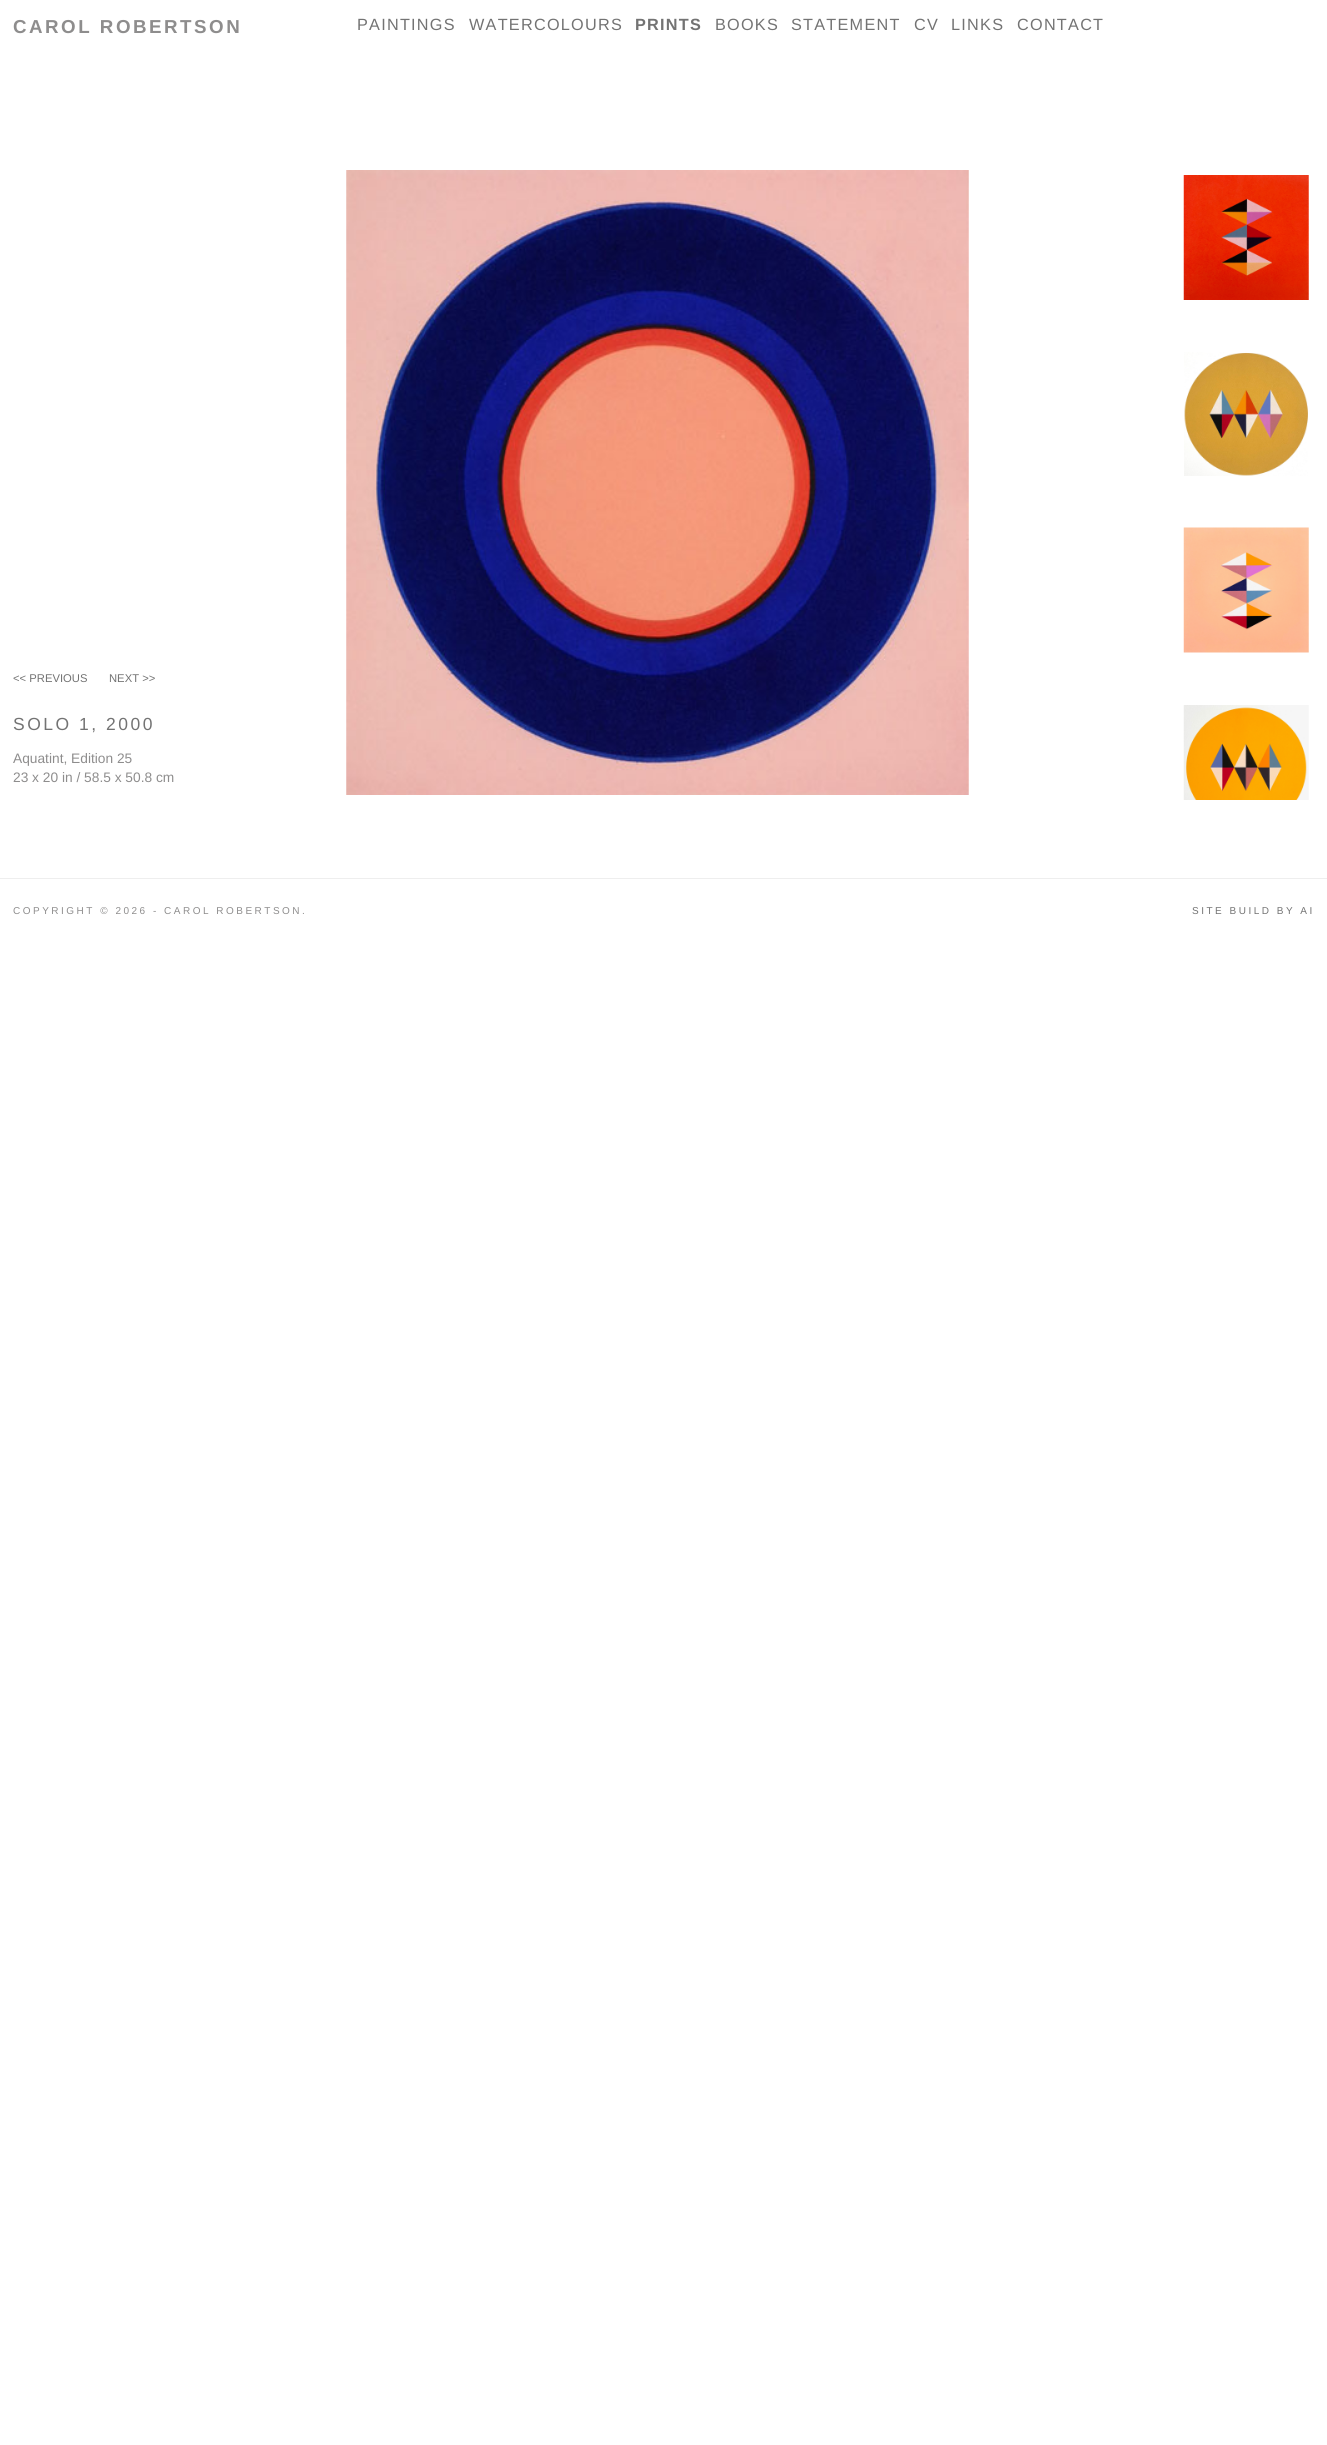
#include <cairo.h>
#include <math.h>
#include <stddef.h>

typedef struct { const char *family; double size; int italic, bold; unsigned color; } style_t;
static cairo_t *ctx;

static void ink(unsigned color) {
    cairo_set_source_rgb(ctx, (color >> 16) / 255.0, (color >> 8 & 255) / 255.0, (color & 255) / 255.0);
}

static void write(double x, double y, const char *s, const style_t *st) {
    cairo_select_font_face(ctx, st->family, st->italic ? CAIRO_FONT_SLANT_ITALIC : CAIRO_FONT_SLANT_NORMAL,
        st->bold ? CAIRO_FONT_WEIGHT_BOLD : CAIRO_FONT_WEIGHT_NORMAL);
    cairo_set_font_size(ctx, st->size);
    ink(st->color);
    cairo_move_to(ctx, x, y);
    cairo_show_text(ctx, s);
}

static void write_spaced(double x, double y, const char *s, double letter, double word) {
    cairo_move_to(ctx, x, y);
    while (*s) {
        char ch[5] = {0};
        int n = 0;
        do ch[n++] = *s++; while ((*s & 0xC0) == 0x80);
        cairo_show_text(ctx, ch);
        cairo_rel_move_to(ctx, letter + word * (*ch == ' '), 0);
    }
}

static void block(double x, double y, double w, double h, unsigned color) {
    ink(color);
    cairo_rectangle(ctx, x, y, w, h);
    cairo_fill(ctx);
}

static void paste(const char *path, double x, double y, double w, double h) {
    cairo_surface_t *image = cairo_image_surface_create_from_png(path);
    cairo_save(ctx);
    cairo_set_source_surface(ctx, image, x, y);
    cairo_rectangle(ctx, x, y, w, h);
    cairo_fill(ctx);
    cairo_restore(ctx);
    cairo_surface_destroy(image);
}

static const style_t s1 = {"Liberation Sans", 11.25, 0, 0, 0x737373};
static const style_t s2 = {"Liberation Sans", 13.75, 0, 0, 0x8e8d8d};

int main(void) {
    cairo_surface_t *surface = cairo_image_surface_create(CAIRO_FORMAT_RGB24, 1327, 2445);
    ctx = cairo_create(surface);
    cairo_font_options_t *options = cairo_font_options_create();
    cairo_font_options_set_hint_metrics(options, CAIRO_HINT_METRICS_OFF);
    cairo_font_options_set_hint_style(options, CAIRO_HINT_STYLE_NONE);
    cairo_set_font_options(ctx, options);
    cairo_set_miter_limit(ctx, 4);
    ink(0xffffff);
    cairo_paint(ctx);
    cairo_select_font_face(ctx, "Liberation Sans", CAIRO_FONT_SLANT_NORMAL, CAIRO_FONT_WEIGHT_BOLD);
    cairo_set_font_size(ctx, 18.75);
    ink(0x8e8d8d);
    write_spaced(13, 33, "CAROL ROBERTSON", 2.5, 0);
    cairo_select_font_face(ctx, "Liberation Sans", CAIRO_FONT_SLANT_NORMAL, CAIRO_FONT_WEIGHT_NORMAL);
    cairo_set_font_size(ctx, 16.25);
    ink(0x737373);
    write_spaced(357, 30, "PAINTINGS", 1.25, 0);
    write_spaced(469, 30, "WATERCOLOURS", 1.25, 0);
    cairo_select_font_face(ctx, "Liberation Sans", CAIRO_FONT_SLANT_NORMAL, CAIRO_FONT_WEIGHT_BOLD);
    write_spaced(635, 30, "PRINTS", 1.25, 0);
    cairo_select_font_face(ctx, "Liberation Sans", CAIRO_FONT_SLANT_NORMAL, CAIRO_FONT_WEIGHT_NORMAL);
    write_spaced(715, 30, "BOOKS", 1.25, 0);
    write_spaced(791, 30, "STATEMENT", 1.25, 0);
    write_spaced(914, 30, "CV", 1.25, 0);
    write_spaced(951, 30, "LINKS", 1.25, 0);
    write_spaced(1017, 30, "CONTACT", 1.25, 0);
    write(13, 682, "<< PREVIOUS", &s1);
    write(109, 682, "NEXT >>", &s1);
    cairo_set_font_size(ctx, 17.5);
    write_spaced(13, 730, "SOLO 1, 2000", 2.5, 0);
    write(13, 763, "Aquatint, Edition 25", &s2);
    write(13, 782, "23 x 20 in / 58.5 x 50.8 cm", &s2);
    paste("pic1.png", 346, 170, 623, 625);
    paste("pic2.png", 1183, 175, 126, 125);
    paste("pic3.png", 1184, 352, 124, 124);
    paste("pic4.png", 1183, 527, 126, 126);
    paste("pic5.png", 1183, 705, 126, 95);
    block(0, 878, 1327, 1, 0xeeeeee);
    cairo_set_font_size(ctx, 10);
    ink(0x8e8d8d);
    write_spaced(13, 914, "COPYRIGHT © 2026 - CAROL ROBERTSON.", 2.5, 0);
    ink(0x737373);
    write_spaced(1192, 914, "SITE BUILD BY AI", 2.5, 0);
    cairo_surface_write_to_png(surface, "screenshot.png");
    cairo_font_options_destroy(options);
    cairo_destroy(ctx);
    cairo_surface_destroy(surface);
    return 0;
}
